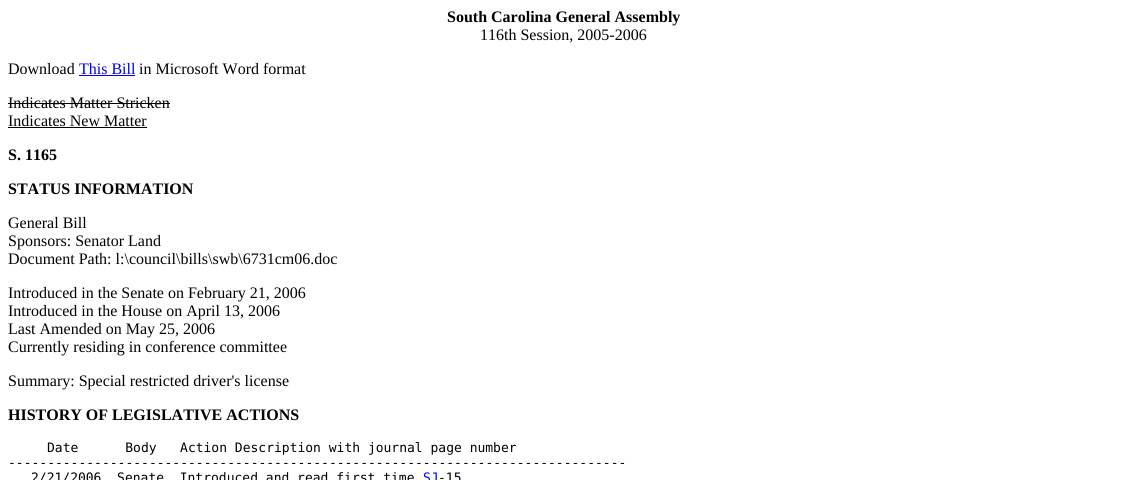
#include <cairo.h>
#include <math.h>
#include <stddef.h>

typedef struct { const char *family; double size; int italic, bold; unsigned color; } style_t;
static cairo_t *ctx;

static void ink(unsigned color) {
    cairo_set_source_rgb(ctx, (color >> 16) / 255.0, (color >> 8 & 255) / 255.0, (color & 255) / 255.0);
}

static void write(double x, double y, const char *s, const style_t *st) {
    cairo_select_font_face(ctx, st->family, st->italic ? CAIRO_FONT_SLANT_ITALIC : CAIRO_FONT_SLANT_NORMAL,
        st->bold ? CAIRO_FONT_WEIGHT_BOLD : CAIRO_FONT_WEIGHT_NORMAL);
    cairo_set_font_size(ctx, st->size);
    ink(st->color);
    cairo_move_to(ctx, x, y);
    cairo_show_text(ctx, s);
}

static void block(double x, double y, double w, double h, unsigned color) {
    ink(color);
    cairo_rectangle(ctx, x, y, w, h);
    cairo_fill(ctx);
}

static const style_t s1 = {"Liberation Serif", 16, 0, 1, 0x000000};
static const style_t s2 = {"Liberation Serif", 16, 0, 0, 0x000000};
static const style_t s3 = {"Liberation Serif", 16, 0, 0, 0x0000ee};
static const style_t s4 = {"DejaVu Sans Mono", 13, 0, 0, 0x000000};
static const style_t s5 = {"DejaVu Sans Mono", 13, 0, 0, 0x0000ee};

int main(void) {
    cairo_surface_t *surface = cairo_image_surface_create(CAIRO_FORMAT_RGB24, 1127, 480);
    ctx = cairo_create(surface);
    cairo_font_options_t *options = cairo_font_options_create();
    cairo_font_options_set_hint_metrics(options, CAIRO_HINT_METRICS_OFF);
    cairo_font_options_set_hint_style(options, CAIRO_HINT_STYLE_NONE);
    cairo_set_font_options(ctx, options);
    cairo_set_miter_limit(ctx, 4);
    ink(0xffffff);
    cairo_paint(ctx);
    write(447, 22, "South Carolina General Assembly", &s1);
    write(480, 40, "116th Session, 2005-2006", &s2);
    write(8, 74, "Download", &s2);
    write(79, 74, "This Bill", &s3);
    block(79, 75, 56, 1, 0x0000ee);
    write(139, 74, "in Microsoft Word format", &s2);
    write(8, 108, "Indicates Matter Stricken", &s2);
    block(8, 103, 162, 1, 0x000000);
    write(8, 126, "Indicates New Matter", &s2);
    block(8, 127, 139, 1, 0x000000);
    write(8, 160, "S. 1165", &s1);
    write(8, 194, "STATUS INFORMATION", &s1);
    write(8, 228, "General Bill", &s2);
    write(8, 246, "Sponsors: Senator Land", &s2);
    write(8, 264, "Document Path: l:\\council\\bills\\swb\\6731cm06.doc", &s2);
    write(8, 298, "Introduced in the Senate on February 21, 2006", &s2);
    write(8, 316, "Introduced in the House on April 13, 2006", &s2);
    write(8, 334, "Last Amended on May 25, 2006", &s2);
    write(8, 352, "Currently residing in conference committee", &s2);
    write(8, 386, "Summary: Special restricted driver's license", &s2);
    write(8, 420, "HISTORY OF LEGISLATIVE ACTIONS", &s1);
    write(47, 452, "Date      Body   Action Description with journal page number", &s4);
    write(8, 467, "-------------------------------------------------------------------------------", &s4);
    write(31, 482, "2/21/2006  Senate  Introduced and read first time", &s4);
    write(423, 482, "SJ", &s5);
    write(438, 482, "-15", &s4);
    cairo_surface_write_to_png(surface, "screenshot.png");
    cairo_font_options_destroy(options);
    cairo_destroy(ctx);
    cairo_surface_destroy(surface);
    return 0;
}
